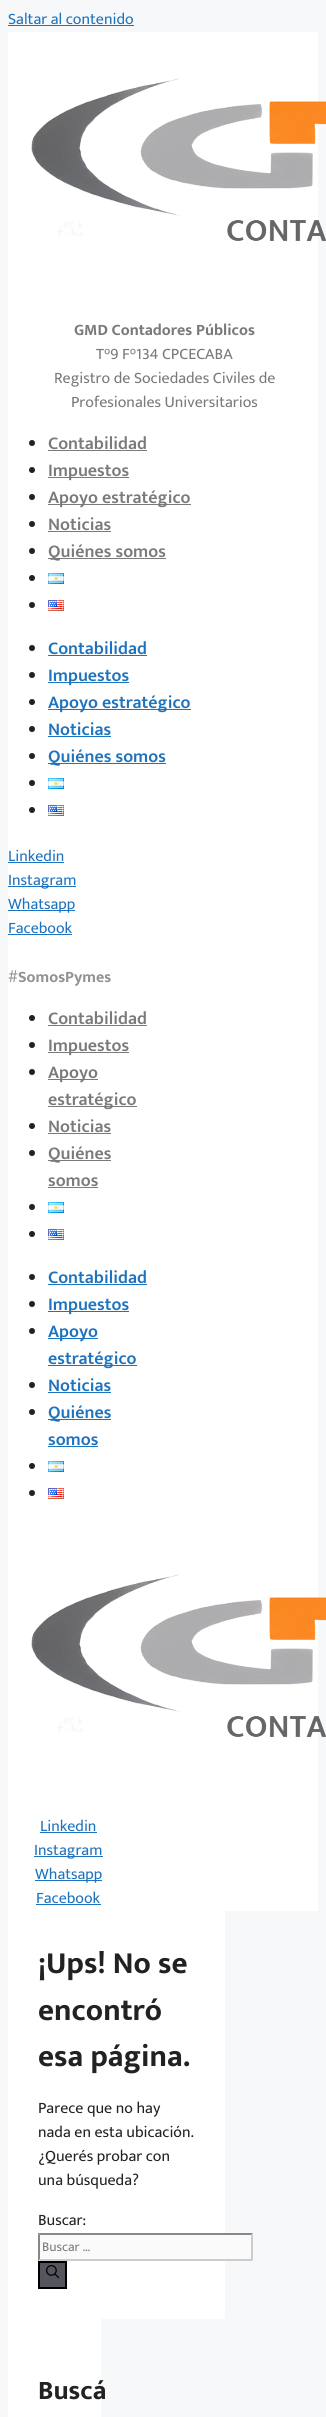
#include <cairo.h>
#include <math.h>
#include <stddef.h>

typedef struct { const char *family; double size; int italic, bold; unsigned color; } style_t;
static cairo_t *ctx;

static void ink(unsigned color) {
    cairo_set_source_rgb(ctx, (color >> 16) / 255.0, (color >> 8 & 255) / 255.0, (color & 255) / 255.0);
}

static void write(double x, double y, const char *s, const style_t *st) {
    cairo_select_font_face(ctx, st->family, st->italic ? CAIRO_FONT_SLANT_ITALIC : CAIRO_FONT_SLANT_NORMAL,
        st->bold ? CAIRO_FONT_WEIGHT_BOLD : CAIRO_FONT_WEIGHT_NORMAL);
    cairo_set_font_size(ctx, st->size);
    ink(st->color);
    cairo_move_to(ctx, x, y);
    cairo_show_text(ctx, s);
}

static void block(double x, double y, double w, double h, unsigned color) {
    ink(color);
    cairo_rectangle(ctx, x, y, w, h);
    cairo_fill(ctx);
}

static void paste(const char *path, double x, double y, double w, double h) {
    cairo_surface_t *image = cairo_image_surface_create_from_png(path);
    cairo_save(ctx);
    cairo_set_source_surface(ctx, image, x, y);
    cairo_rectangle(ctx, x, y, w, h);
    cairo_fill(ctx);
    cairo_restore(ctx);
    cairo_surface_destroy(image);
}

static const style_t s1 = {"Mukta", 16, 0, 0, 0x1e73be};
static const style_t s2 = {"Mukta", 16, 0, 1, 0x7a7a7a};
static const style_t s3 = {"Mukta", 16, 0, 0, 0x7a7a7a};
static const style_t s4 = {"Mukta SemiBold", 18, 0, 0, 0x7a7a7a};
static const style_t s5 = {"Mukta SemiBold", 18, 0, 0, 0x1e73be};
static const style_t s6 = {"Mukta", 16, 0, 0, 0x929292};
static const style_t s7 = {"Mukta", 16, 0, 1, 0x929292};
static const style_t s8 = {"Ek Mukta", 31, 0, 1, 0x222222};
static const style_t s9 = {"Mukta", 16, 0, 0, 0x222222};
static const style_t s10 = {"Ek Mukta", 13.5, 0, 0, 0x7a7a7a};
static const style_t s11 = {"Ek Mukta", 27, 0, 1, 0x222222};

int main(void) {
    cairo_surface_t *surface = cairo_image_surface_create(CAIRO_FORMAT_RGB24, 326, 2417);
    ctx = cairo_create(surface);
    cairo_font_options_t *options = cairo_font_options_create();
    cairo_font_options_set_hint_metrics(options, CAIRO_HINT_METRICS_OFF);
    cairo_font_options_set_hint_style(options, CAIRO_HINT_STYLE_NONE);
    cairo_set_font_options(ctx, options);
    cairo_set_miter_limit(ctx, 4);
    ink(0xf7f8f9);
    cairo_paint(ctx);
    write(8, 24, "Saltar al contenido", &s1);
    block(8, 25, 126, 1, 0x1e73be);
    block(8, 32, 310, 1879, 0xffffff);
    paste("pic1.png", 31, 78, 295, 163);
    write(74, 335, "GMD Contadores Públicos", &s2);
    write(96, 359, "T°9 F°134 CPCECABA", &s3);
    write(54, 383, "Registro de Sociedades Civiles de", &s3);
    write(71, 407, "Profesionales Universitarios", &s3);
    ink(0x222222);
    cairo_new_path(ctx);
    cairo_arc(ctx, 32, 443, 3, 0, 2 * M_PI);
    cairo_fill(ctx);
    write(48, 449, "Contabilidad", &s4);
    block(48, 450, 99, 1, 0x7a7a7a);
    ink(0x222222);
    cairo_new_path(ctx);
    cairo_arc(ctx, 32, 470, 3, 0, 2 * M_PI);
    cairo_fill(ctx);
    block(48, 477, 81, 1, 0x7a7a7a);
    write(48, 476, "Impuestos", &s4);
    ink(0x222222);
    cairo_new_path(ctx);
    cairo_arc(ctx, 32, 497, 3, 0, 2 * M_PI);
    cairo_fill(ctx);
    block(48, 504, 143, 1, 0x7a7a7a);
    write(48, 503, "Apoyo estratégico", &s4);
    ink(0x222222);
    cairo_new_path(ctx);
    cairo_arc(ctx, 32, 524, 3, 0, 2 * M_PI);
    cairo_fill(ctx);
    write(48, 530, "Noticias", &s4);
    block(48, 531, 63, 1, 0x7a7a7a);
    ink(0x222222);
    cairo_new_path(ctx);
    cairo_arc(ctx, 32, 551, 3, 0, 2 * M_PI);
    cairo_fill(ctx);
    block(48, 558, 118, 1, 0x7a7a7a);
    write(48, 557, "Quiénes somos", &s4);
    ink(0x222222);
    cairo_new_path(ctx);
    cairo_arc(ctx, 32, 578, 3, 0, 2 * M_PI);
    cairo_fill(ctx);
    paste("pic2.png", 48, 573, 16, 11);
    cairo_arc(ctx, 32, 605, 3, 0, 2 * M_PI);
    cairo_fill(ctx);
    paste("pic3.png", 48, 600, 16, 11);
    cairo_arc(ctx, 32, 648, 3, 0, 2 * M_PI);
    cairo_fill(ctx);
    write(48, 654, "Contabilidad", &s5);
    block(48, 655, 99, 1, 0x1e73be);
    ink(0x222222);
    cairo_new_path(ctx);
    cairo_arc(ctx, 32, 675, 3, 0, 2 * M_PI);
    cairo_fill(ctx);
    block(48, 682, 81, 1, 0x1e73be);
    write(48, 681, "Impuestos", &s5);
    ink(0x222222);
    cairo_new_path(ctx);
    cairo_arc(ctx, 32, 702, 3, 0, 2 * M_PI);
    cairo_fill(ctx);
    block(48, 709, 143, 1, 0x1e73be);
    write(48, 708, "Apoyo estratégico", &s5);
    ink(0x222222);
    cairo_new_path(ctx);
    cairo_arc(ctx, 32, 729, 3, 0, 2 * M_PI);
    cairo_fill(ctx);
    write(48, 735, "Noticias", &s5);
    block(48, 736, 63, 1, 0x1e73be);
    ink(0x222222);
    cairo_new_path(ctx);
    cairo_arc(ctx, 32, 756, 3, 0, 2 * M_PI);
    cairo_fill(ctx);
    block(48, 763, 118, 1, 0x1e73be);
    write(48, 762, "Quiénes somos", &s5);
    ink(0x222222);
    cairo_new_path(ctx);
    cairo_arc(ctx, 32, 783, 3, 0, 2 * M_PI);
    cairo_fill(ctx);
    paste("pic2.png", 48, 778, 16, 11);
    cairo_arc(ctx, 32, 810, 3, 0, 2 * M_PI);
    cairo_fill(ctx);
    paste("pic3.png", 48, 805, 16, 11);
    write(8, 861, "Linkedin", &s1);
    block(8, 862, 56, 1, 0x1e73be);
    block(8, 886, 68, 1, 0x1e73be);
    write(8, 885, "Instagram", &s1);
    block(8, 910, 67, 1, 0x1e73be);
    write(8, 909, "Whatsapp", &s1);
    write(8, 933, "Facebook", &s1);
    block(8, 934, 64, 1, 0x1e73be);
    write(8, 982, "#", &s6);
    write(18, 982, "SomosPymes", &s7);
    ink(0x222222);
    cairo_new_path(ctx);
    cairo_arc(ctx, 32, 1018, 3, 0, 2 * M_PI);
    cairo_fill(ctx);
    write(48, 1024, "Contabilidad", &s4);
    block(48, 1025, 99, 1, 0x7a7a7a);
    ink(0x222222);
    cairo_new_path(ctx);
    cairo_arc(ctx, 32, 1045, 3, 0, 2 * M_PI);
    cairo_fill(ctx);
    block(48, 1052, 81, 1, 0x7a7a7a);
    write(48, 1051, "Impuestos", &s4);
    ink(0x222222);
    cairo_new_path(ctx);
    cairo_arc(ctx, 32, 1072, 3, 0, 2 * M_PI);
    cairo_fill(ctx);
    block(48, 1079, 50, 1, 0x7a7a7a);
    write(48, 1078, "Apoyo", &s4);
    block(48, 1106, 89, 1, 0x7a7a7a);
    write(48, 1105, "estratégico", &s4);
    ink(0x222222);
    cairo_new_path(ctx);
    cairo_arc(ctx, 32, 1126, 3, 0, 2 * M_PI);
    cairo_fill(ctx);
    write(48, 1132, "Noticias", &s4);
    block(48, 1133, 63, 1, 0x7a7a7a);
    ink(0x222222);
    cairo_new_path(ctx);
    cairo_arc(ctx, 32, 1153, 3, 0, 2 * M_PI);
    cairo_fill(ctx);
    block(48, 1160, 63, 1, 0x7a7a7a);
    write(48, 1159, "Quiénes", &s4);
    write(48, 1186, "somos", &s4);
    block(48, 1187, 50, 1, 0x7a7a7a);
    ink(0x222222);
    cairo_new_path(ctx);
    cairo_arc(ctx, 32, 1207, 3, 0, 2 * M_PI);
    cairo_fill(ctx);
    paste("pic2.png", 48, 1202, 16, 11);
    cairo_arc(ctx, 32, 1234, 3, 0, 2 * M_PI);
    cairo_fill(ctx);
    paste("pic3.png", 48, 1229, 16, 11);
    cairo_arc(ctx, 32, 1277, 3, 0, 2 * M_PI);
    cairo_fill(ctx);
    write(48, 1283, "Contabilidad", &s5);
    block(48, 1284, 99, 1, 0x1e73be);
    ink(0x222222);
    cairo_new_path(ctx);
    cairo_arc(ctx, 32, 1304, 3, 0, 2 * M_PI);
    cairo_fill(ctx);
    block(48, 1311, 81, 1, 0x1e73be);
    write(48, 1310, "Impuestos", &s5);
    ink(0x222222);
    cairo_new_path(ctx);
    cairo_arc(ctx, 32, 1331, 3, 0, 2 * M_PI);
    cairo_fill(ctx);
    block(48, 1338, 50, 1, 0x1e73be);
    write(48, 1337, "Apoyo", &s5);
    block(48, 1365, 89, 1, 0x1e73be);
    write(48, 1364, "estratégico", &s5);
    ink(0x222222);
    cairo_new_path(ctx);
    cairo_arc(ctx, 32, 1385, 3, 0, 2 * M_PI);
    cairo_fill(ctx);
    write(48, 1391, "Noticias", &s5);
    block(48, 1392, 63, 1, 0x1e73be);
    ink(0x222222);
    cairo_new_path(ctx);
    cairo_arc(ctx, 32, 1412, 3, 0, 2 * M_PI);
    cairo_fill(ctx);
    block(48, 1419, 63, 1, 0x1e73be);
    write(48, 1418, "Quiénes", &s5);
    write(48, 1445, "somos", &s5);
    block(48, 1446, 50, 1, 0x1e73be);
    ink(0x222222);
    cairo_new_path(ctx);
    cairo_arc(ctx, 32, 1466, 3, 0, 2 * M_PI);
    cairo_fill(ctx);
    paste("pic2.png", 48, 1461, 16, 11);
    cairo_arc(ctx, 32, 1493, 3, 0, 2 * M_PI);
    cairo_fill(ctx);
    paste("pic3.png", 48, 1488, 16, 11);
    paste("pic1.png", 31, 1574, 295, 163);
    write(40, 1831, "Linkedin", &s1);
    block(40, 1832, 57, 1, 0x1e73be);
    block(34, 1856, 69, 1, 0x1e73be);
    write(34, 1855, "Instagram", &s1);
    block(35, 1880, 67, 1, 0x1e73be);
    write(35, 1879, "Whatsapp", &s1);
    write(36, 1903, "Facebook", &s1);
    block(36, 1904, 65, 1, 0x1e73be);
    block(8, 1911, 217, 408, 0xffffff);
    write(38, 1973, "¡Ups! No se", &s8);
    write(38, 2020, "encontró", &s8);
    write(38, 2066, "esa página.", &s8);
    write(38, 2113, "Parece que no hay", &s9);
    write(38, 2137, "nada en esta ubicación.", &s9);
    write(38, 2161, "¿Querés probar con", &s9);
    write(38, 2185, "una búsqueda?", &s9);
    write(38, 2225, "Buscar:", &s9);
    block(38, 2233, 215, 28, 0xfafafa);
    ink(0x888888);
    cairo_new_path(ctx);
    cairo_move_to(ctx, 38, 2233);
    cairo_line_to(ctx, 253, 2233);
    cairo_line_to(ctx, 251, 2235);
    cairo_line_to(ctx, 40, 2235);
    cairo_close_path(ctx);
    cairo_fill(ctx);
    ink(0xcccccc);
    cairo_new_path(ctx);
    cairo_move_to(ctx, 253, 2233);
    cairo_line_to(ctx, 253, 2261);
    cairo_line_to(ctx, 251, 2259);
    cairo_line_to(ctx, 251, 2235);
    cairo_close_path(ctx);
    cairo_fill(ctx);
    cairo_new_path(ctx);
    cairo_move_to(ctx, 253, 2261);
    cairo_line_to(ctx, 38, 2261);
    cairo_line_to(ctx, 40, 2259);
    cairo_line_to(ctx, 251, 2259);
    cairo_close_path(ctx);
    cairo_fill(ctx);
    ink(0x888888);
    cairo_new_path(ctx);
    cairo_move_to(ctx, 38, 2261);
    cairo_line_to(ctx, 38, 2233);
    cairo_line_to(ctx, 40, 2235);
    cairo_line_to(ctx, 40, 2259);
    cairo_close_path(ctx);
    cairo_fill(ctx);
    write(42, 2251, "Buscar …", &s10);
    ink(0x55555e);
    cairo_rectangle(ctx, 39, 2262, 27, 26);
    cairo_fill_preserve(ctx);
    ink(0x000000);
    cairo_stroke(ctx);
    paste("pic4.png", 46, 2265, 13, 14);
    block(8, 2319, 93, 98, 0xffffff);
    write(38, 2399, "Buscá", &s11);
    cairo_surface_write_to_png(surface, "screenshot.png");
    cairo_font_options_destroy(options);
    cairo_destroy(ctx);
    cairo_surface_destroy(surface);
    return 0;
}
